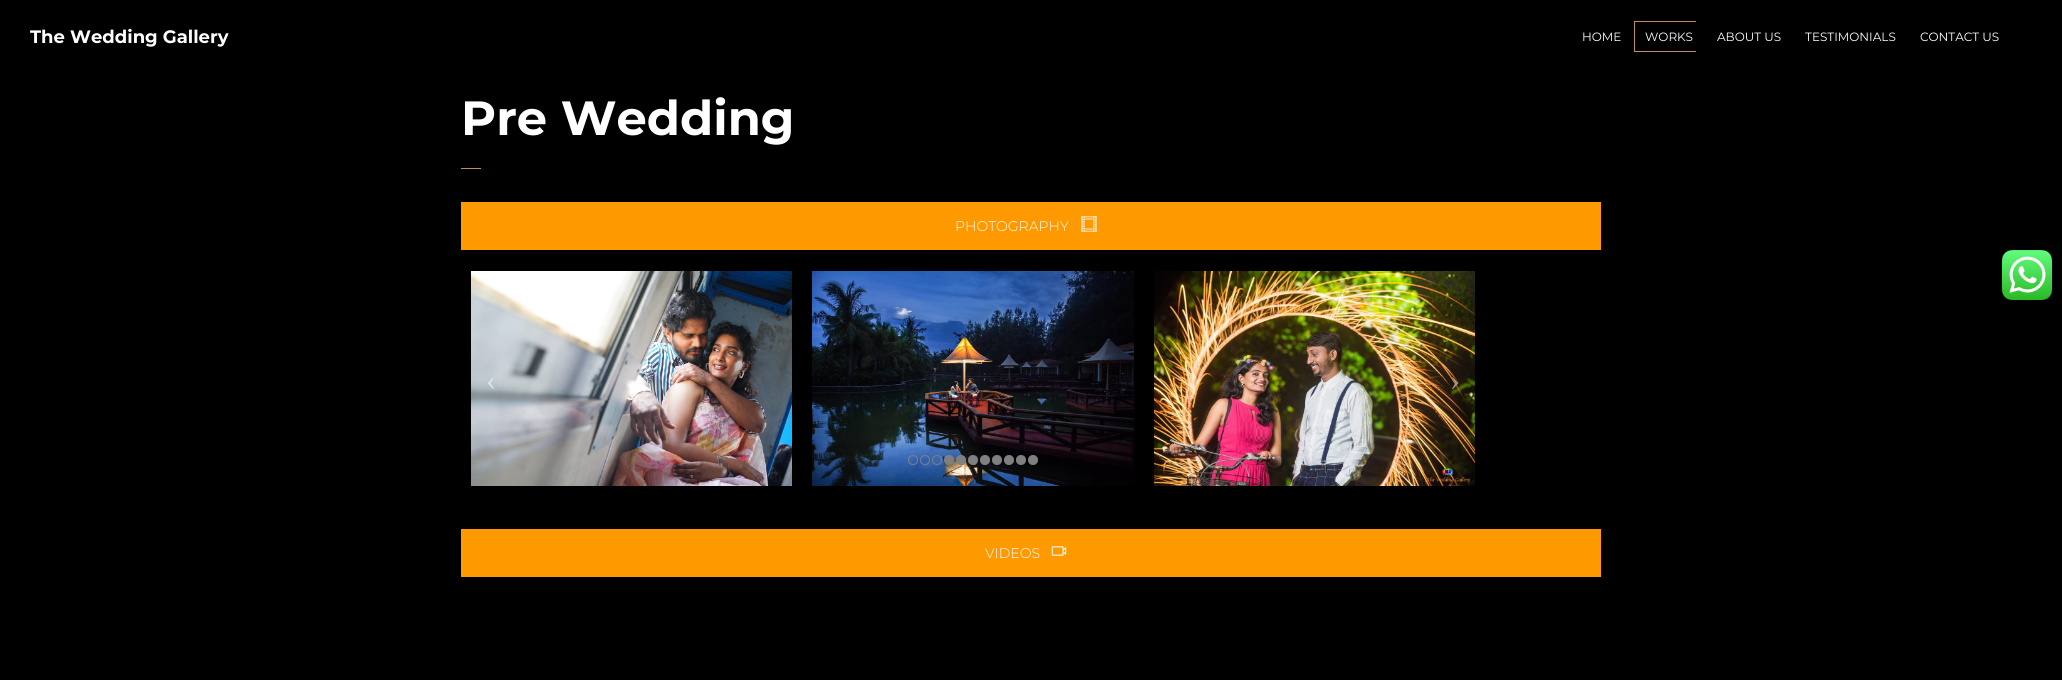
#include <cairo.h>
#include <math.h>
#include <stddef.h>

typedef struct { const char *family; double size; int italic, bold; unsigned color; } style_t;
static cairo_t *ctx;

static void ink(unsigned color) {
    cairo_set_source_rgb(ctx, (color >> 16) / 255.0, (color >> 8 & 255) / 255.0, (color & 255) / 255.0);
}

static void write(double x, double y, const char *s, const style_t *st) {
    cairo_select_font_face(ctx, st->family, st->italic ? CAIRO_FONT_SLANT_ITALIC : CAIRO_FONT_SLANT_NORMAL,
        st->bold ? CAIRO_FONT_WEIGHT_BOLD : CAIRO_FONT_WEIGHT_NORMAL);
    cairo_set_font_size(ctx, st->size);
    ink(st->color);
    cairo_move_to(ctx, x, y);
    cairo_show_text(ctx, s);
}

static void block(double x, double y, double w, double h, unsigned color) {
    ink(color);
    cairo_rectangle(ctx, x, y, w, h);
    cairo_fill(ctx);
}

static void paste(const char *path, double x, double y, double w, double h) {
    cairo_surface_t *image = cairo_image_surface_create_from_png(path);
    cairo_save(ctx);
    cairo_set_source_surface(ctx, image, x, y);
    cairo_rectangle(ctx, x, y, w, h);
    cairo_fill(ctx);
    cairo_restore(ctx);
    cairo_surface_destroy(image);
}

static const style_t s1 = {"Montserrat", 18, 0, 1, 0xffffff};
static const style_t s2 = {"Montserrat", 12, 0, 0, 0xffffff};
static const style_t s3 = {"Montserrat", 48, 0, 1, 0xffffff};
static const style_t s4 = {"Montserrat Light", 14, 0, 0, 0xffffff};
static const style_t s5 = {"Liberation Serif", 30, 0, 0, 0xdde2e4};
static const style_t s6 = {"Liberation Serif", 30, 0, 0, 0xa69689};

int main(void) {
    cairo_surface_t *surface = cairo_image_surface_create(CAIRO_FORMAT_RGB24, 2062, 680);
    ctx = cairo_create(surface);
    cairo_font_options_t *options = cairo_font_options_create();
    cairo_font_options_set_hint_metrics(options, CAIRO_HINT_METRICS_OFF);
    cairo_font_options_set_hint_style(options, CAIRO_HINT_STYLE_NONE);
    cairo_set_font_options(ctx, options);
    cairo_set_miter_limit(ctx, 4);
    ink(0x000000);
    cairo_paint(ctx);
    write(30, 43, "The Wedding Gallery", &s1);
    write(1582, 41, "HOME", &s2);
    write(1645, 41, "WORKS", &s2);
    block(1634, 21, 62, 1, 0xc48f56);
    block(1634, 51, 62, 1, 0xc48f56);
    block(1634, 21, 1, 31, 0xc48f56);
    write(1717, 41, "ABOUT US", &s2);
    write(1805, 41, "TESTIMONIALS", &s2);
    write(1920, 41, "CONTACT US", &s2);
    write(461, 135, "Pre Wedding", &s3);
    block(461, 168, 20, 1, 0xc48f56);
    block(461, 202, 1140, 48, 0xff9900);
    write(955, 231, "PHOTOGRAPHY", &s4);
    paste("pic1.png", 1081, 216, 16, 16);
    paste("pic2.png", 471, 271, 321, 215);
    paste("pic3.png", 812, 271, 322, 215);
    paste("pic4.png", 1154, 271, 321, 215);
    write(486, 390, "‹", &s5);
    write(1450, 390, "›", &s6);
    cairo_new_path(ctx);
    cairo_arc(ctx, 913, 460, 4.5, 0, 2 * M_PI);
    ink(0x808080);
    cairo_set_line_width(ctx, 1);
    cairo_stroke(ctx);
    cairo_arc(ctx, 925, 460, 4.5, 0, 2 * M_PI);
    cairo_stroke(ctx);
    cairo_arc(ctx, 937, 460, 4.5, 0, 2 * M_PI);
    cairo_stroke(ctx);
    cairo_arc(ctx, 949, 460, 4.5, 0, 2 * M_PI);
    cairo_fill_preserve(ctx);
    cairo_stroke(ctx);
    cairo_arc(ctx, 961, 460, 4.5, 0, 2 * M_PI);
    cairo_fill_preserve(ctx);
    cairo_stroke(ctx);
    cairo_arc(ctx, 973, 460, 4.5, 0, 2 * M_PI);
    cairo_fill_preserve(ctx);
    cairo_stroke(ctx);
    cairo_arc(ctx, 985, 460, 4.5, 0, 2 * M_PI);
    cairo_fill_preserve(ctx);
    cairo_stroke(ctx);
    cairo_arc(ctx, 997, 460, 4.5, 0, 2 * M_PI);
    cairo_fill_preserve(ctx);
    cairo_stroke(ctx);
    cairo_arc(ctx, 1009, 460, 4.5, 0, 2 * M_PI);
    cairo_fill_preserve(ctx);
    cairo_stroke(ctx);
    cairo_arc(ctx, 1021, 460, 4.5, 0, 2 * M_PI);
    cairo_fill_preserve(ctx);
    cairo_stroke(ctx);
    cairo_arc(ctx, 1033, 460, 4.5, 0, 2 * M_PI);
    cairo_fill_preserve(ctx);
    cairo_stroke(ctx);
    block(461, 529, 1140, 48, 0xff9900);
    write(985, 558, "VIDEOS", &s4);
    paste("pic5.png", 1051, 546, 16, 10);
    paste("pic6.png", 2002, 250, 50, 50);
    cairo_surface_write_to_png(surface, "screenshot.png");
    cairo_font_options_destroy(options);
    cairo_destroy(ctx);
    cairo_surface_destroy(surface);
    return 0;
}
